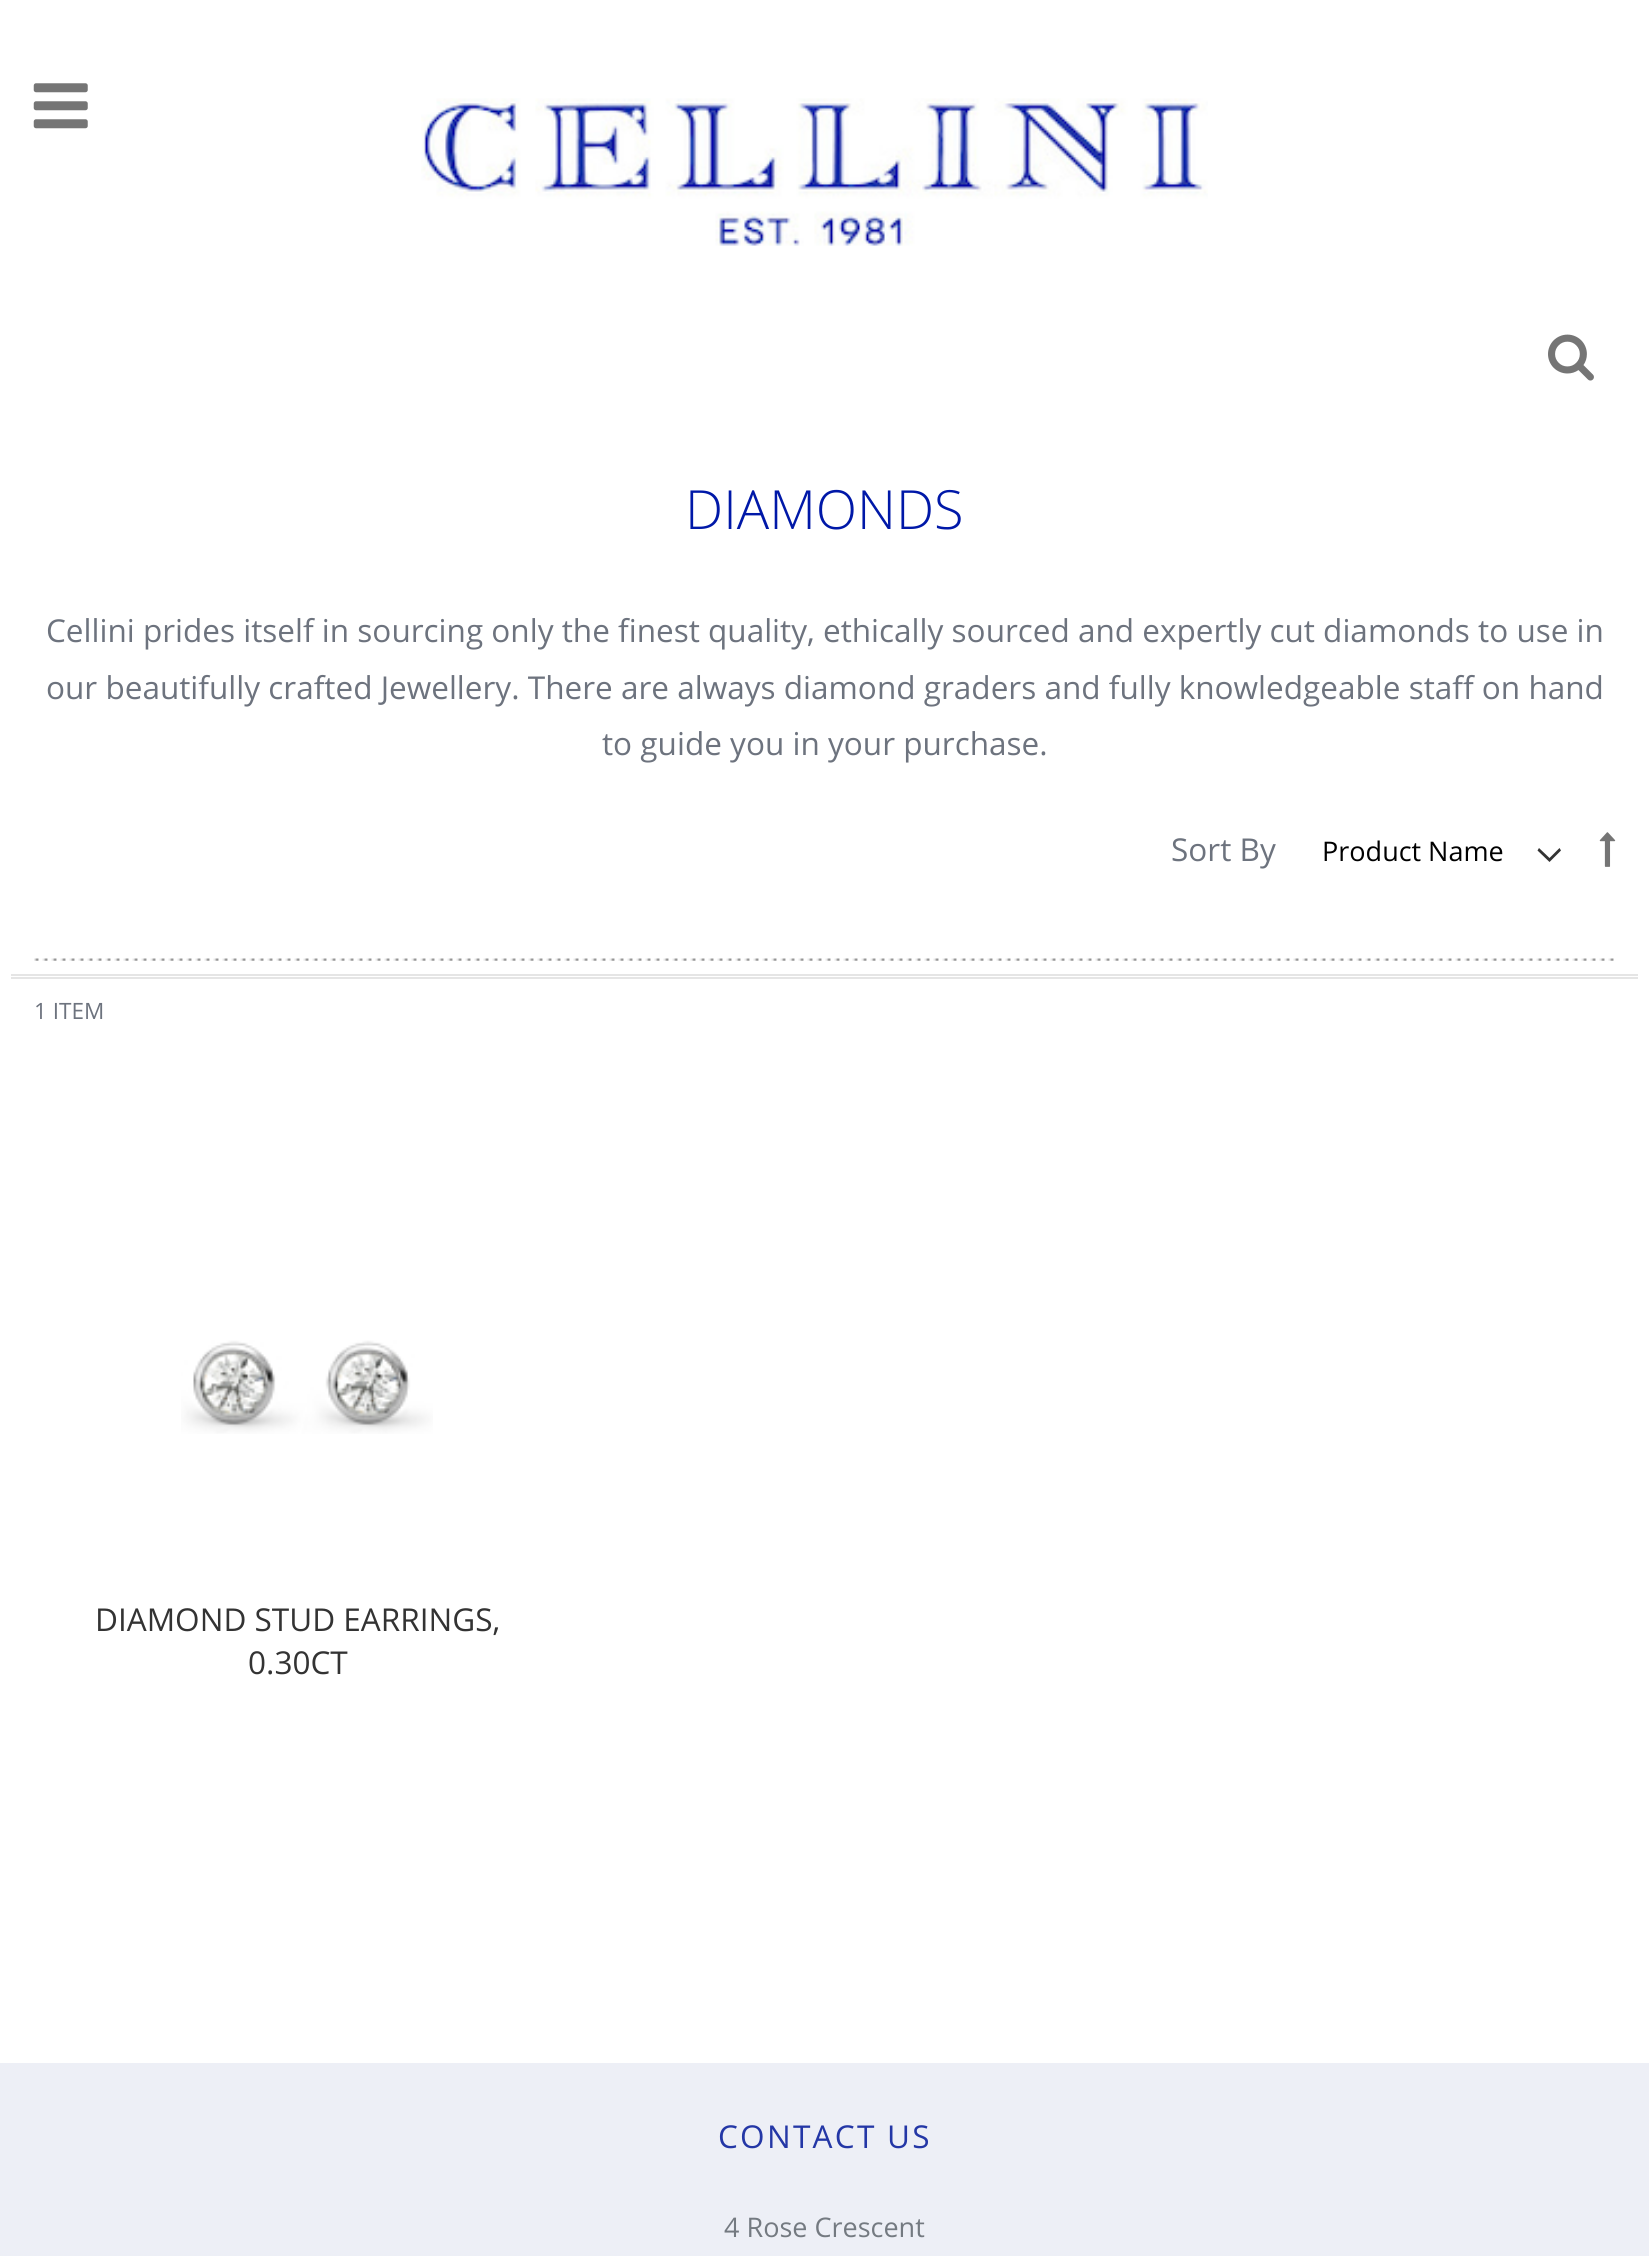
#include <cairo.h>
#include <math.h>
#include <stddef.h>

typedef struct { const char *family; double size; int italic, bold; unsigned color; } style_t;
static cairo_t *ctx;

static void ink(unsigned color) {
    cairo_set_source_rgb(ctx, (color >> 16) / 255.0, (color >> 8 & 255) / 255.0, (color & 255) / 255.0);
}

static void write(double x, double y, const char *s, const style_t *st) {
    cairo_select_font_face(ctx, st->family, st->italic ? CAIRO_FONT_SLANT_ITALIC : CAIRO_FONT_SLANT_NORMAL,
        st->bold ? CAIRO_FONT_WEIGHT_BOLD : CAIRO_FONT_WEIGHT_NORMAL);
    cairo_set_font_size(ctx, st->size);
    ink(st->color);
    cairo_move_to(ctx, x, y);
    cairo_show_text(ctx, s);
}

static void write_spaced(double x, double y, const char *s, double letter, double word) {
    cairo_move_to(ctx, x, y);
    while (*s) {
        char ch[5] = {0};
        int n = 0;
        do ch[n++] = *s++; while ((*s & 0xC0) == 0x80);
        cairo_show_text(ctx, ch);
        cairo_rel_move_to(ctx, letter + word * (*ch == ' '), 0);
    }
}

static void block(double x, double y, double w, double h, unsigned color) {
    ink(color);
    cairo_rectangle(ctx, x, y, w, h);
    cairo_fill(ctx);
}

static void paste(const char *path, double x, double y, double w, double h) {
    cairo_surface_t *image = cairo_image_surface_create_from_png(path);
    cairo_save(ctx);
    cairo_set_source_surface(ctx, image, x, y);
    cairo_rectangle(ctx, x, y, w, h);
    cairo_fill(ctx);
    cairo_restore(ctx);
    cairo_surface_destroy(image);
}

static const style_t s1 = {"Open Sans Light", 54, 0, 0, 0x0018a8};
static const style_t s2 = {"Open Sans", 31.5, 0, 0, 0x6d737e};
static const style_t s3 = {"Open Sans", 27, 0, 0, 0x000000};
static const style_t s4 = {"Open Sans", 22.5, 0, 0, 0x6d737e};
static const style_t s5 = {"Open Sans", 31.5, 0, 0, 0x333333};
static const style_t s6 = {"Open Sans", 27, 0, 0, 0x747a81};

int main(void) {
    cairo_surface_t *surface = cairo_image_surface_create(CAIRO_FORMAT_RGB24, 1649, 2256);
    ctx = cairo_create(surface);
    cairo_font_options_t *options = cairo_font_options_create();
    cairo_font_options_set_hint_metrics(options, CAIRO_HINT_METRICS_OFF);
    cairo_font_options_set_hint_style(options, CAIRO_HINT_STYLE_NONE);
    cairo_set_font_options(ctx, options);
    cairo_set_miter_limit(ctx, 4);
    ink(0xffffff);
    cairo_paint(ctx);
    paste("pic1.png", 33, 83, 55, 46);
    paste("pic2.png", 421, 98, 787, 148);
    paste("pic3.png", 1548, 334, 46, 47);
    write(685, 529, "DIAMONDS", &s1);
    write(46, 642, "Cellini prides itself in sourcing only the finest quality, ethically sourced and expertly cut diamonds to use in", &s2);
    write(46, 699, "our beautifully crafted Jewellery. There are always diamond graders and fully knowledgeable staff on hand", &s2);
    write(602, 755, "to guide you in your purchase.", &s2);
    write(1171, 861, "Sort By", &s2);
    ink(0x333333);
    cairo_set_fill_rule(ctx, CAIRO_FILL_RULE_EVEN_ODD);
    cairo_new_path(ctx);
    cairo_move_to(ctx, 1549.5, 862);
    cairo_line_to(ctx, 1561, 850.5);
    cairo_line_to(ctx, 1559.5, 848);
    cairo_line_to(ctx, 1549.5, 858);
    cairo_line_to(ctx, 1539, 848);
    cairo_line_to(ctx, 1537.5, 850.5);
    cairo_close_path(ctx);
    cairo_fill(ctx);
    write(1322, 861, "Product Name", &s3);
    paste("pic4.png", 1599, 832, 17, 35);
    write(34, 1019, "1 ITEM", &s4);
    paste("pic5.png", 181, 1340, 252, 94);
    write(95, 1631, "DIAMOND STUD EARRINGS,", &s5);
    write(248, 1674, "0.30CT", &s5);
    paste("pic6.png", 34, 958, 1580, 3);
    block(11, 974, 1627, 2, 0xe5e5e5);
    block(11, 977, 1627, 2, 0xe5e5e5);
    block(0, 2063, 1649, 193, 0xedeff6);
    ink(0x2437a6);
    write_spaced(718, 2148, "CONTACT US", 2.25, 0);
    write(724, 2237, "4 Rose Crescent", &s6);
    cairo_surface_write_to_png(surface, "screenshot.png");
    cairo_font_options_destroy(options);
    cairo_destroy(ctx);
    cairo_surface_destroy(surface);
    return 0;
}
